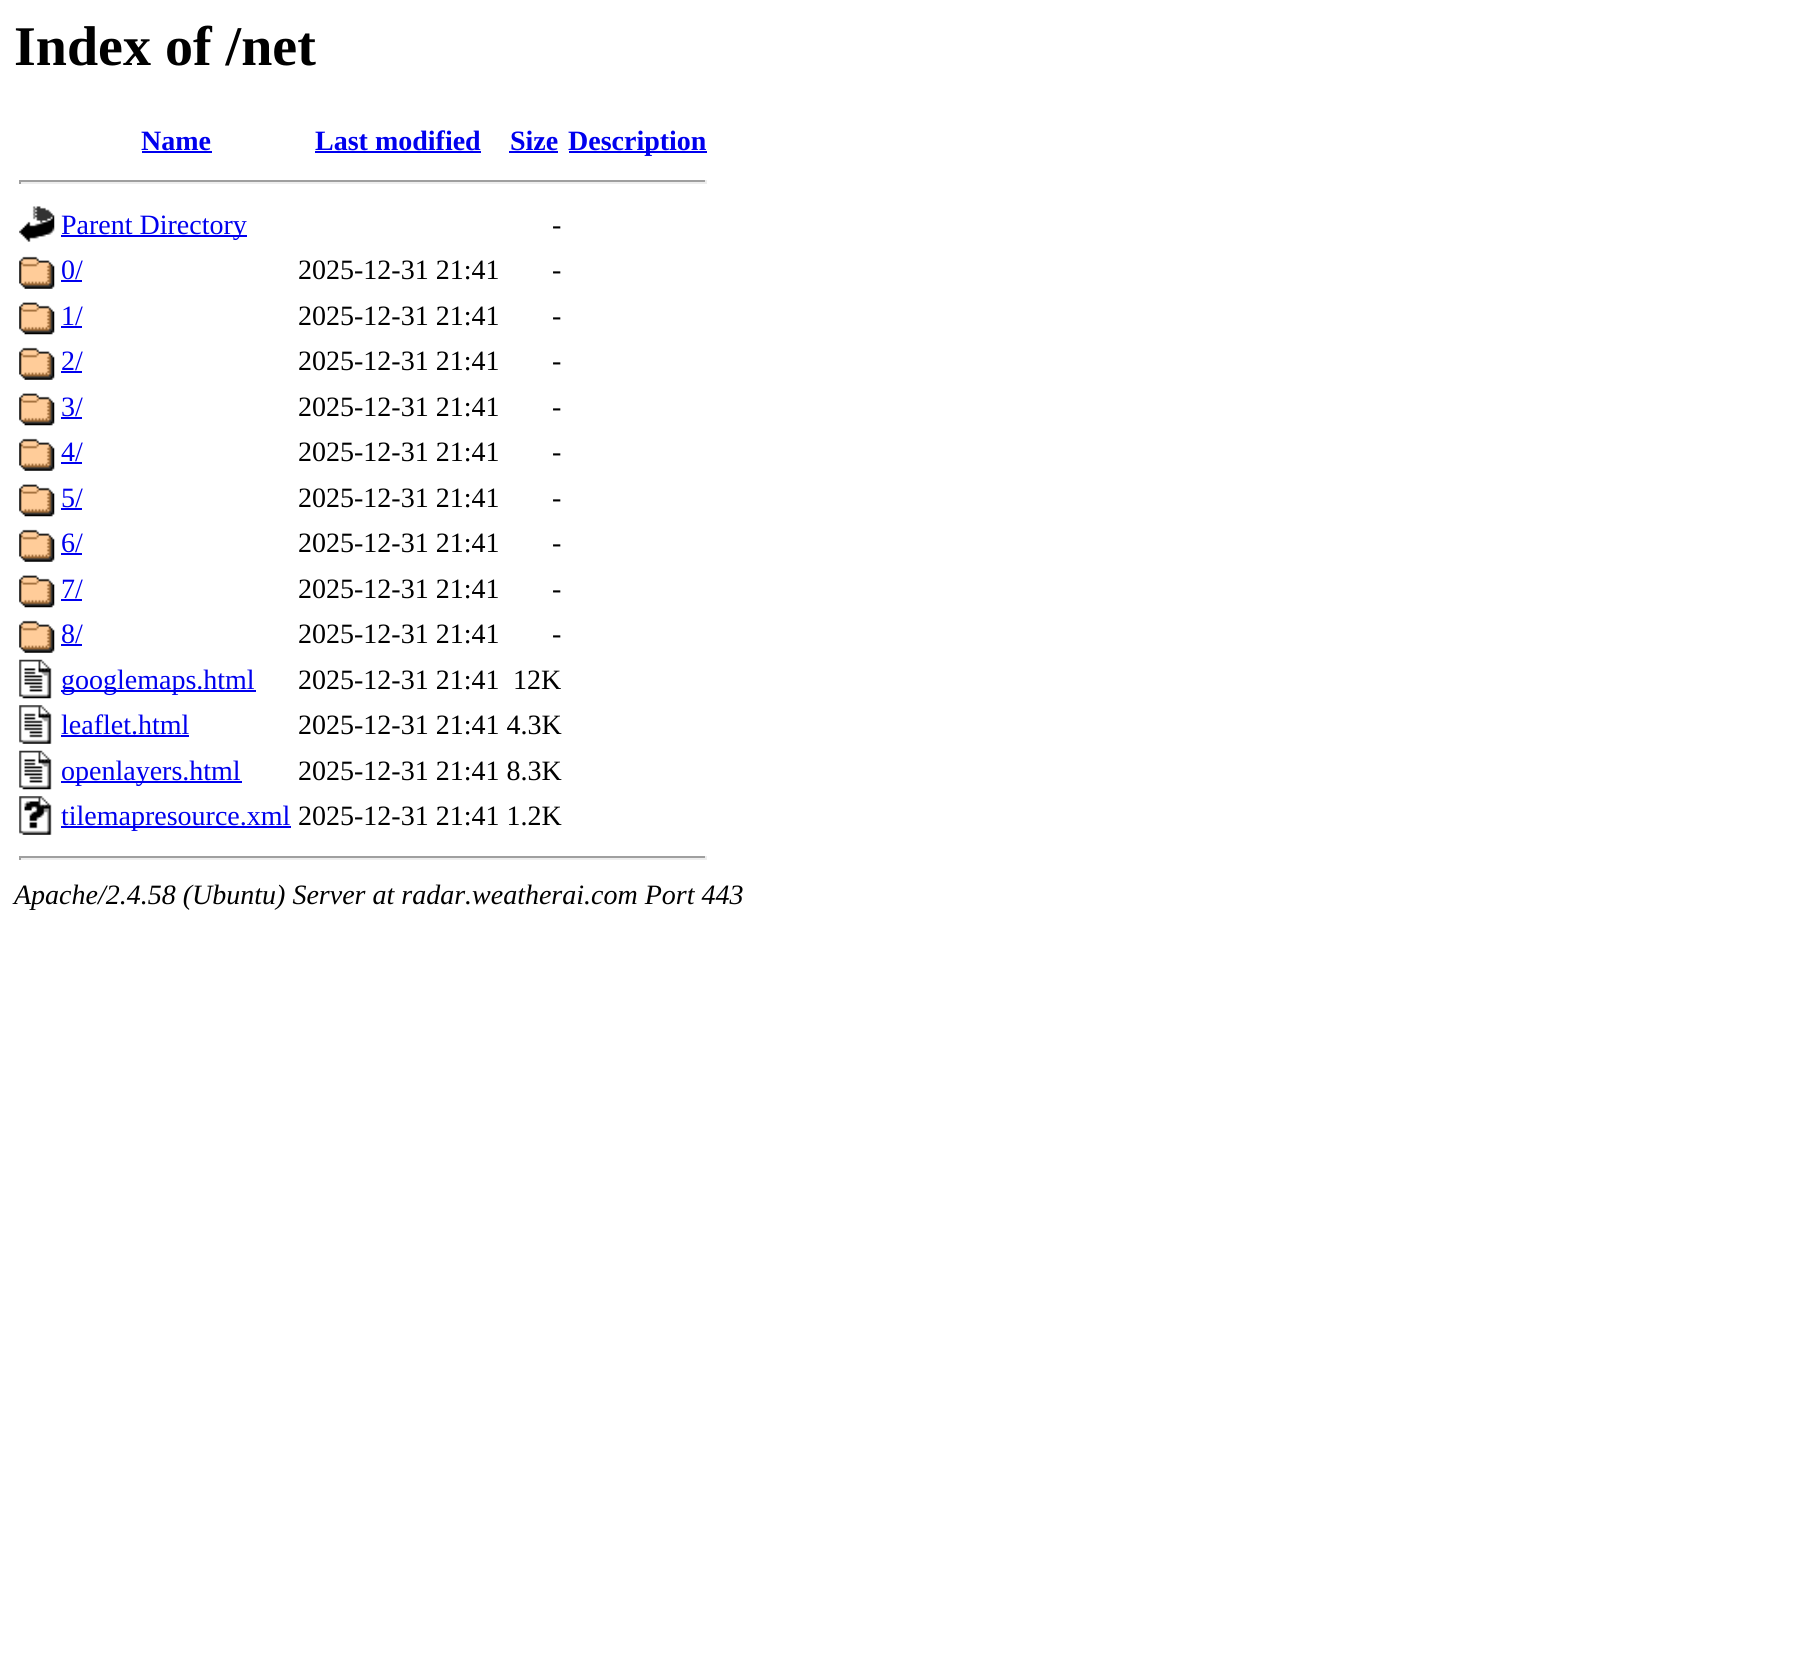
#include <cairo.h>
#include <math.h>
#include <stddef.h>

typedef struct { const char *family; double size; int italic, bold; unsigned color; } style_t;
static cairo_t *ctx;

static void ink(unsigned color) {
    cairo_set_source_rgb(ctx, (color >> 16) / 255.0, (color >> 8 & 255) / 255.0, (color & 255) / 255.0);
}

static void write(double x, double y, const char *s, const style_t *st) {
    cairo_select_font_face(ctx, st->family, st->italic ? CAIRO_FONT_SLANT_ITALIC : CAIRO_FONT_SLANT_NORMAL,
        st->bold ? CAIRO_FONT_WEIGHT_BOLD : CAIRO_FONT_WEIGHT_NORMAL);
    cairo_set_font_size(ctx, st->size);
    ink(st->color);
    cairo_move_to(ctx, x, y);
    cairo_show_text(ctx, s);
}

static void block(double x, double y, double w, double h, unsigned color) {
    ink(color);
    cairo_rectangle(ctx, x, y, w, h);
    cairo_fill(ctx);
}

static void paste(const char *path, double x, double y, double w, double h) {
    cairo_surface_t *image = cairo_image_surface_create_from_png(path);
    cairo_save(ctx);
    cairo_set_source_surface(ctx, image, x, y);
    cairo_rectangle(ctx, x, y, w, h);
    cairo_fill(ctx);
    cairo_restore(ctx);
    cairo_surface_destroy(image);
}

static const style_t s1 = {"Liberation Serif", 56, 0, 1, 0x000000};
static const style_t s2 = {"Liberation Serif", 28, 0, 1, 0x0000ee};
static const style_t s3 = {"Liberation Serif", 28, 0, 0, 0x0000ee};
static const style_t s4 = {"Liberation Serif", 28, 0, 0, 0x000000};
static const style_t s5 = {"Liberation Serif", 28, 1, 0, 0x000000};

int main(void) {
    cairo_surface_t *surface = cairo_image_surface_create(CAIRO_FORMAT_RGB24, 1795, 1654);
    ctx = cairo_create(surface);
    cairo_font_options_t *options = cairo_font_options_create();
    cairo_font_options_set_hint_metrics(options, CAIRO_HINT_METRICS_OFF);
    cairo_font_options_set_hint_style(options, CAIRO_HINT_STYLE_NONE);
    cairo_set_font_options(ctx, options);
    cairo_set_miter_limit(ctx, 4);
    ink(0xffffff);
    cairo_paint(ctx);
    write(14, 65, "Index of /net", &s1);
    write(141, 150, "Name", &s2);
    block(142, 151, 70, 2, 0x0000ee);
    write(315, 150, "Last modified", &s2);
    block(315, 151, 166, 2, 0x0000ee);
    write(510, 150, "Size", &s2);
    block(509, 151, 49, 2, 0x0000ee);
    block(569, 151, 138, 2, 0x0000ee);
    write(568, 150, "Description", &s2);
    block(19, 180, 688, 2, 0x9f9f9f);
    block(705, 180, 2, 4, 0xeeeeee);
    block(19, 182, 688, 2, 0xeeeeee);
    block(19, 180, 2, 4, 0x9f9f9f);
    paste("pic1.png", 19, 206, 36, 36);
    block(61, 235, 186, 2, 0x0000ee);
    write(61, 234, "Parent Directory", &s3);
    write(552, 234, "-", &s4);
    paste("pic2.png", 19, 256, 36, 33);
    write(61, 279, "0/", &s3);
    block(61, 280, 21, 2, 0x0000ee);
    write(298, 279, "2025-12-31 21:41", &s4);
    write(552, 279, "-", &s4);
    paste("pic3.png", 19, 302, 36, 33);
    write(61, 325, "1/", &s3);
    block(61, 326, 21, 2, 0x0000ee);
    write(298, 325, "2025-12-31 21:41", &s4);
    write(552, 325, "-", &s4);
    paste("pic2.png", 19, 347, 36, 33);
    write(61, 370, "2/", &s3);
    block(61, 371, 21, 2, 0x0000ee);
    write(298, 370, "2025-12-31 21:41", &s4);
    write(552, 370, "-", &s4);
    paste("pic3.png", 19, 393, 36, 33);
    write(61, 416, "3/", &s3);
    block(61, 417, 21, 2, 0x0000ee);
    write(298, 416, "2025-12-31 21:41", &s4);
    write(552, 416, "-", &s4);
    paste("pic2.png", 19, 438, 36, 33);
    write(61, 461, "4/", &s3);
    block(61, 462, 21, 2, 0x0000ee);
    write(298, 461, "2025-12-31 21:41", &s4);
    write(552, 461, "-", &s4);
    paste("pic3.png", 19, 484, 36, 33);
    write(61, 507, "5/", &s3);
    block(61, 508, 21, 2, 0x0000ee);
    write(298, 507, "2025-12-31 21:41", &s4);
    write(552, 507, "-", &s4);
    paste("pic2.png", 19, 529, 36, 33);
    write(61, 552, "6/", &s3);
    block(61, 553, 21, 2, 0x0000ee);
    write(298, 552, "2025-12-31 21:41", &s4);
    write(552, 552, "-", &s4);
    paste("pic3.png", 19, 575, 36, 33);
    write(61, 598, "7/", &s3);
    block(61, 599, 21, 2, 0x0000ee);
    write(298, 598, "2025-12-31 21:41", &s4);
    write(552, 598, "-", &s4);
    paste("pic2.png", 19, 620, 36, 33);
    write(61, 643, "8/", &s3);
    block(61, 644, 21, 2, 0x0000ee);
    write(298, 643, "2025-12-31 21:41", &s4);
    write(552, 643, "-", &s4);
    paste("pic4.png", 19, 659, 33, 40);
    block(61, 690, 195, 2, 0x0000ee);
    write(61, 689, "googlemaps.html", &s3);
    write(298, 689, "2025-12-31 21:41", &s4);
    write(513, 689, "12K", &s4);
    paste("pic5.png", 19, 705, 33, 39);
    write(61, 734, "leaflet.html", &s3);
    block(61, 735, 128, 2, 0x0000ee);
    write(298, 734, "2025-12-31 21:41 4.3K", &s4);
    paste("pic4.png", 19, 750, 33, 40);
    block(61, 781, 181, 2, 0x0000ee);
    write(61, 780, "openlayers.html", &s3);
    write(298, 780, "2025-12-31 21:41 8.3K", &s4);
    paste("pic6.png", 19, 796, 33, 39);
    block(61, 826, 230, 2, 0x0000ee);
    write(61, 825, "tilemapresource.xml", &s3);
    write(298, 825, "2025-12-31 21:41 1.2K", &s4);
    block(19, 856, 688, 2, 0x9f9f9f);
    block(705, 856, 2, 4, 0xeeeeee);
    block(19, 858, 688, 2, 0xeeeeee);
    block(19, 856, 2, 4, 0x9f9f9f);
    write(14, 904, "Apache/2.4.58 (Ubuntu) Server at radar.weatherai.com Port 443", &s5);
    cairo_surface_write_to_png(surface, "screenshot.png");
    cairo_font_options_destroy(options);
    cairo_destroy(ctx);
    cairo_surface_destroy(surface);
    return 0;
}
